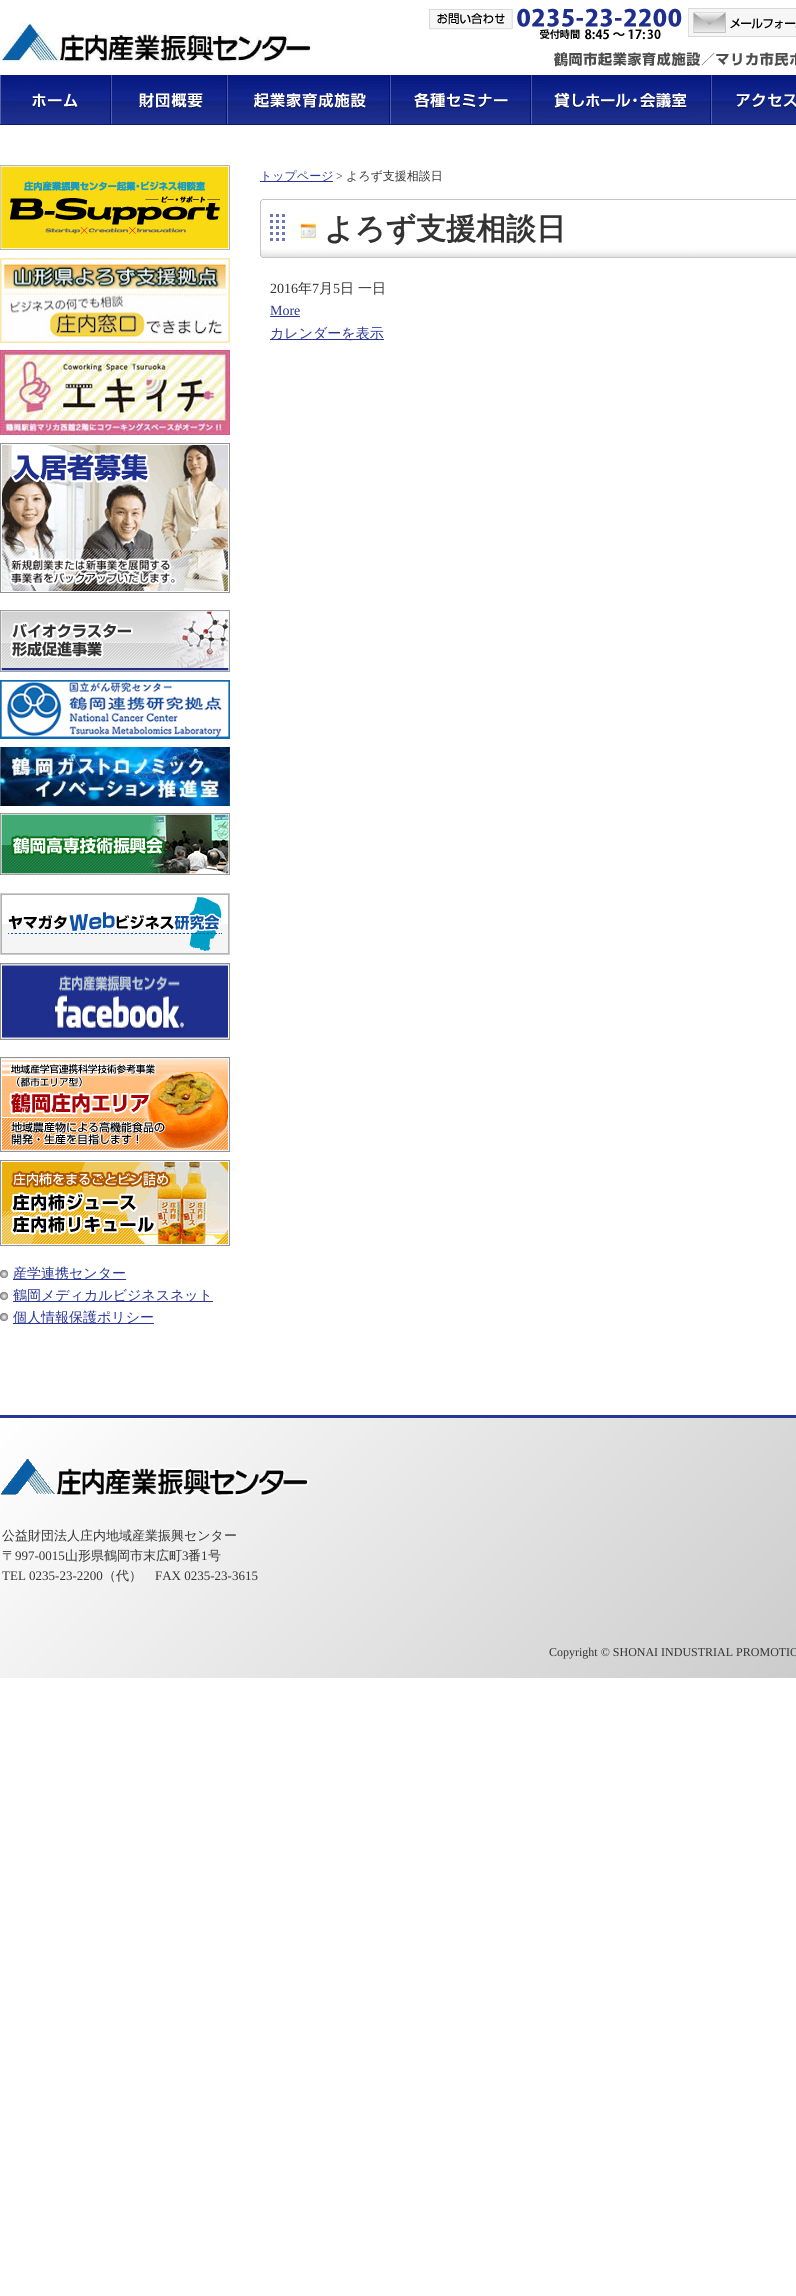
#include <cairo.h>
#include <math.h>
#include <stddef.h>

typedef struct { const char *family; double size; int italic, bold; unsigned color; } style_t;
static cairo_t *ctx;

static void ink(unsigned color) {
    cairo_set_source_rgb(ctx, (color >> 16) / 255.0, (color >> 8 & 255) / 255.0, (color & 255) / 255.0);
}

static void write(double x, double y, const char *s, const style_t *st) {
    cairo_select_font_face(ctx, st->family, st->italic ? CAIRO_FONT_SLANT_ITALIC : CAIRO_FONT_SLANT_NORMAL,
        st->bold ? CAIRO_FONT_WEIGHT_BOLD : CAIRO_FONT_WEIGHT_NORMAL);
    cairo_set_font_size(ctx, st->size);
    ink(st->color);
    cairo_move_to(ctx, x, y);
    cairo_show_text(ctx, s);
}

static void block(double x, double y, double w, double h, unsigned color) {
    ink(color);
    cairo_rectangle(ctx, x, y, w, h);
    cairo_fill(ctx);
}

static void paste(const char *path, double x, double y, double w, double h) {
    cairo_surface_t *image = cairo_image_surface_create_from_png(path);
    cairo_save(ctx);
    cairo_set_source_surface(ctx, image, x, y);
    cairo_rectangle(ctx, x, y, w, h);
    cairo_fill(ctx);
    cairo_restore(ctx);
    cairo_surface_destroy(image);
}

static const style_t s1 = {"WenQuanYi Zen Hei Medium", 12, 0, 0, 0x293694};
static const style_t s2 = {"Liberation Serif", 12, 0, 0, 0x333333};
static const style_t s3 = {"WenQuanYi Zen Hei Medium", 12, 0, 0, 0x333333};
static const style_t s4 = {"WenQuanYi Zen Hei", 30, 0, 1, 0x333333};
static const style_t s5 = {"Liberation Serif", 14, 0, 0, 0x333333};
static const style_t s6 = {"WenQuanYi Zen Hei Medium", 14, 0, 0, 0x333333};
static const style_t s7 = {"Liberation Serif", 14, 0, 0, 0x293694};
static const style_t s8 = {"WenQuanYi Zen Hei Medium", 14, 0, 0, 0x293694};
static const style_t s9 = {"WenQuanYi Zen Hei Medium", 13, 0, 0, 0x333333};
static const style_t s10 = {"Liberation Serif", 13, 0, 0, 0x333333};

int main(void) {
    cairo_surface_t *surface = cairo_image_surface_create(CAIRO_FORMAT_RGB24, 796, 2296);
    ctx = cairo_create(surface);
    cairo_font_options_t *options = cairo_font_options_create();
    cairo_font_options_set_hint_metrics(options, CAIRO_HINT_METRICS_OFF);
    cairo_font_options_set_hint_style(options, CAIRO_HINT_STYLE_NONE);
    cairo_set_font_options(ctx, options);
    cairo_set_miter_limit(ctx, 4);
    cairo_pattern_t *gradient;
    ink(0xffffff);
    cairo_paint(ctx);
    paste("pic1.png", 0, 22, 311, 41);
    paste("pic2.png", 429, 8, 253, 32);
    paste("pic3.png", 688, 8, 108, 29);
    paste("pic4.png", 554, 52, 242, 15);
    paste("pic5.png", 0, 75, 111, 50);
    paste("pic6.png", 111, 75, 116, 50);
    paste("pic7.png", 227, 75, 163, 50);
    paste("pic8.png", 390, 75, 141, 50);
    paste("pic9.png", 531, 75, 180, 50);
    paste("pic10.png", 711, 75, 85, 50);
    block(260, 181, 73, 1, 0x293694);
    write(260, 180, "トップページ", &s1);
    write(336, 180, ">", &s2);
    write(346, 180, "よろず支援相談日", &s3);
    paste("pic11.png", 260, 199, 536, 50);
    paste("pic12.png", 260, 249, 536, 9);
    paste("pic13.png", 270, 214, 15, 27);
    block(300, 223, 16, 16, 0xffffcc);
    write(324, 239, "よろず支援相談日", &s4);
    paste("pic14.png", 301, 224, 15, 14);
    write(270, 293, "2016", &s5);
    write(298, 293, "年", &s6);
    write(312, 293, "7", &s5);
    write(319, 293, "月", &s6);
    write(333, 293, "5", &s5);
    write(340, 293, "日", &s6);
    write(358, 293, "一日", &s6);
    write(270, 315, "More", &s7);
    block(270, 316, 30, 1, 0x293694);
    block(270, 339, 114, 1, 0x293694);
    write(270, 338, "カレンダーを表示", &s8);
    paste("pic15.png", 0, 165, 230, 85);
    paste("pic16.png", 0, 258, 230, 85);
    paste("pic17.png", 0, 350, 230, 85);
    paste("pic18.png", 0, 443, 230, 150);
    paste("pic19.png", 0, 610, 230, 62);
    paste("pic20.png", 0, 680, 230, 59);
    paste("pic21.png", 0, 747, 230, 59);
    paste("pic22.png", 0, 813, 230, 62);
    paste("pic23.png", 0, 893, 230, 62);
    paste("pic24.png", 0, 963, 230, 77);
    paste("pic25.png", 0, 1057, 230, 95);
    paste("pic26.png", 0, 1160, 230, 86);
    paste("pic27.png", 0, 1270, 8, 8);
    block(13, 1279, 113, 1, 0x293694);
    write(13, 1278, "産学連携センター", &s8);
    paste("pic27.png", 0, 1292, 8, 8);
    block(13, 1301, 200, 1, 0x293694);
    write(13, 1300, "鶴岡メディカルビジネスネット", &s8);
    paste("pic27.png", 0, 1313, 8, 8);
    block(13, 1323, 141, 1, 0x293694);
    write(13, 1322, "個人情報保護ポリシー", &s8);
    gradient = cairo_pattern_create_linear(134, 1284, 662, 1812);
    cairo_pattern_add_color_stop_rgba(gradient, 0, 1, 1, 1, 1);
    cairo_pattern_add_color_stop_rgba(gradient, 1, 0.8, 0.8, 0.8, 1);
    cairo_set_source(ctx, gradient);
    cairo_pattern_destroy(gradient);
    cairo_rectangle(ctx, 0, 1418, 796, 260);
    cairo_fill(ctx);
    block(0, 1415, 796, 3, 0x293694);
    paste("pic28.png", 1, 1459, 308, 37);
    write(2, 1540, "公益財団法人庄内地域産業振興センター", &s9);
    write(2, 1560, "〒", &s9);
    write(15, 1560, "997-0015", &s10);
    write(65, 1560, "山形県鶴岡市末広町", &s9);
    write(182, 1560, "3", &s10);
    write(188, 1560, "番", &s9);
    write(201, 1560, "1", &s10);
    write(208, 1560, "号", &s9);
    write(2, 1580, "TEL 0235-23-2200", &s10);
    write(103, 1580, "（代）", &s9);
    write(155, 1580, "FAX 0235-23-3615", &s10);
    write(549, 1656, "Copyright © SHONAI INDUSTRIAL PROMOTIO", &s2);
    cairo_surface_write_to_png(surface, "screenshot.png");
    cairo_font_options_destroy(options);
    cairo_destroy(ctx);
    cairo_surface_destroy(surface);
    return 0;
}
